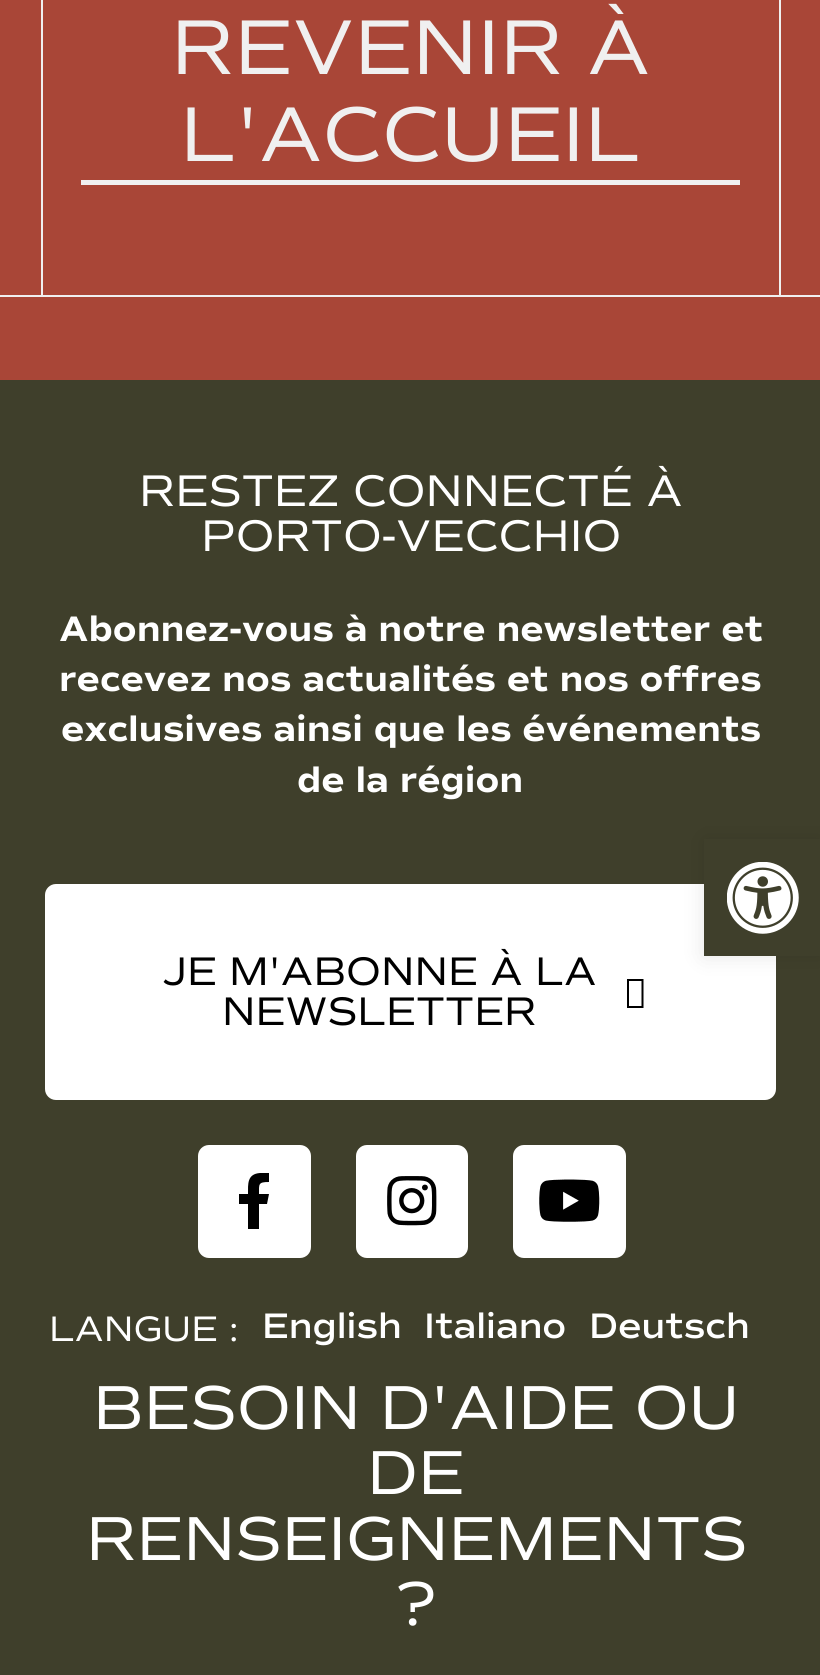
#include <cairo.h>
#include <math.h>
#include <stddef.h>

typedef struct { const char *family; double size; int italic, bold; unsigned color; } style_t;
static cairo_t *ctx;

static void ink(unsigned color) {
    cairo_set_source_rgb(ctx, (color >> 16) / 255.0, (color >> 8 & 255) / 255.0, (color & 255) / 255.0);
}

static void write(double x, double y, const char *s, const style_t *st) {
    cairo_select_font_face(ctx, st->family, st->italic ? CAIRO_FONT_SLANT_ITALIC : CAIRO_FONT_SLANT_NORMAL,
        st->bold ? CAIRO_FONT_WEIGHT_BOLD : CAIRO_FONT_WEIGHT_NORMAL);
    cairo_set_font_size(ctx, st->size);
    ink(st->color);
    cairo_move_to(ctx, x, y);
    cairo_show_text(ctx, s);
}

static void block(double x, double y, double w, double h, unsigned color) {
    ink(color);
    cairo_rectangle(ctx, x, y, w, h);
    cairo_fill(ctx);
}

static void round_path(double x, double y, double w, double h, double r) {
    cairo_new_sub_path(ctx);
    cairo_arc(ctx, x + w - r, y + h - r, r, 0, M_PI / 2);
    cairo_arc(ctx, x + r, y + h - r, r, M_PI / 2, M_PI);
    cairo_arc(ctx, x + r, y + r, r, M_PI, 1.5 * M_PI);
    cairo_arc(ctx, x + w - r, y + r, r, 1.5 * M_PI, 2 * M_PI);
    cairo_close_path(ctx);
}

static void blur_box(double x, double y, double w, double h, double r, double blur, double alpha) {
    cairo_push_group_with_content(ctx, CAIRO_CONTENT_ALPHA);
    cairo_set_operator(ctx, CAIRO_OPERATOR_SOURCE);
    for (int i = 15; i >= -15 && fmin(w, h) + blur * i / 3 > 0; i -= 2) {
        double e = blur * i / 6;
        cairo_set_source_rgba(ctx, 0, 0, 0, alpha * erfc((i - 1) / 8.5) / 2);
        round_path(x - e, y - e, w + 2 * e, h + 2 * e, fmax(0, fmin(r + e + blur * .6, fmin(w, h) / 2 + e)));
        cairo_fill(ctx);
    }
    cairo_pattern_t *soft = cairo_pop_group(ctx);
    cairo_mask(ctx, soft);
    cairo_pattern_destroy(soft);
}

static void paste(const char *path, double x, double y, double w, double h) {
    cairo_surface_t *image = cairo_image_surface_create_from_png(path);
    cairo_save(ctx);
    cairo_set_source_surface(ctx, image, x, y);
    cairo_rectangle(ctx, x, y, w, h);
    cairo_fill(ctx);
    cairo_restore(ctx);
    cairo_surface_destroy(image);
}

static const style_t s1 = {"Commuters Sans", 78.75, 0, 0, 0xf0f0f0};
static const style_t s2 = {"Commuters Sans", 45, 0, 0, 0xffffff};
static const style_t s3 = {"Commuters Sans", 36, 0, 1, 0xffffff};
static const style_t s4 = {"Commuters Sans", 40.5, 0, 0, 0x000000};
static const style_t s5 = {"Commuters Sans", 36, 0, 0, 0xffffff};
static const style_t s6 = {"Commuters Sans SemiBold", 36, 0, 0, 0xffffff};
static const style_t s7 = {"Commuters Sans", 63, 0, 0, 0xffffff};

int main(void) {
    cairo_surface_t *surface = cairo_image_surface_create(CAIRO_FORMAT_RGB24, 820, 1675);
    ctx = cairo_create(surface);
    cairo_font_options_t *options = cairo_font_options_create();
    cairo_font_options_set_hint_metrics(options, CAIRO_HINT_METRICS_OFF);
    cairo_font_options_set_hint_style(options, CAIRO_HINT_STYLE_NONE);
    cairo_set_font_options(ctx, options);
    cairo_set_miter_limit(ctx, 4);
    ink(0xa94637);
    cairo_paint(ctx);
    block(0, 295, 820, 2, 0xf0f0f0);
    block(779, 0, 2, 295, 0xf0f0f0);
    block(41, 0, 2, 295, 0xf0f0f0);
    block(81, 180, 659, 5, 0xf0f0f0);
    write(171, 74, "REVENIR À", &s1);
    write(180, 161, "L'ACCUEIL", &s1);
    block(0, 380, 820, 1295, 0x3f3f2b);
    write(139, 506, "RESTEZ CONNECTÉ À", &s2);
    write(201, 551, "PORTO-VECCHIO", &s2);
    write(59, 641, "Abonnez-vous à notre newsletter et", &s3);
    write(59, 691, "recevez nos actualités et nos offres", &s3);
    write(61, 741, "exclusives ainsi que les événements", &s3);
    write(297, 792, "de la région", &s3);
    round_path(45, 884, 731, 216, 11);
    cairo_fill(ctx);
    write(162, 985, "JE M'ABONNE À LA", &s4);
    write(222, 1025, "NEWSLETTER", &s4);
    cairo_new_path(ctx);
    cairo_move_to(ctx, 627, 1008);
    cairo_line_to(ctx, 627, 979);
    cairo_line_to(ctx, 643.5, 979);
    cairo_line_to(ctx, 643.5, 1008);
    cairo_close_path(ctx);
    cairo_move_to(ctx, 629, 1006);
    cairo_line_to(ctx, 641.5, 1006);
    cairo_line_to(ctx, 641.5, 981);
    cairo_line_to(ctx, 629, 981);
    cairo_close_path(ctx);
    cairo_fill(ctx);
    ink(0xffffff);
    round_path(198, 1145, 113, 113, 11);
    cairo_fill(ctx);
    ink(0x000000);
    cairo_new_path(ctx);
    cairo_move_to(ctx, 267, 1204);
    cairo_line_to(ctx, 269, 1194);
    cairo_line_to(ctx, 259, 1194);
    cairo_curve_to(ctx, 259, 1184, 258, 1182, 269, 1182);
    cairo_line_to(ctx, 269, 1173);
    cairo_line_to(ctx, 260, 1173);
    cairo_curve_to(ctx, 247, 1174, 248, 1184, 248, 1194);
    cairo_line_to(ctx, 239, 1194);
    cairo_line_to(ctx, 239, 1204);
    cairo_line_to(ctx, 248, 1204);
    cairo_line_to(ctx, 248, 1229);
    cairo_line_to(ctx, 259, 1229);
    cairo_line_to(ctx, 259, 1204);
    cairo_close_path(ctx);
    cairo_fill(ctx);
    ink(0xffffff);
    round_path(356, 1145, 112, 113, 11);
    cairo_fill(ctx);
    paste("pic1.png", 387, 1176, 50, 50);
    round_path(513, 1145, 113, 113, 11);
    cairo_fill(ctx);
    paste("pic2.png", 539, 1179, 61, 43);
    write(49, 1341, "LANGUE :", &s5);
    write(262, 1338, "English", &s6);
    write(424, 1338, "Italiano", &s6);
    write(589, 1338, "Deutsch", &s6);
    write(93, 1429, "BESOIN D'AIDE OU", &s7);
    write(367, 1494, "DE", &s7);
    write(86, 1560, "RENSEIGNEMENTS", &s7);
    write(396, 1625, "?", &s7);
    ink(0x000000);
    blur_box(704, 839, 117, 117, 0, 11, 0.1);
    block(704, 839, 116, 117, 0x3f3f2b);
    paste("pic3.png", 727, 862, 72, 72);
    cairo_surface_write_to_png(surface, "screenshot.png");
    cairo_font_options_destroy(options);
    cairo_destroy(ctx);
    cairo_surface_destroy(surface);
    return 0;
}
